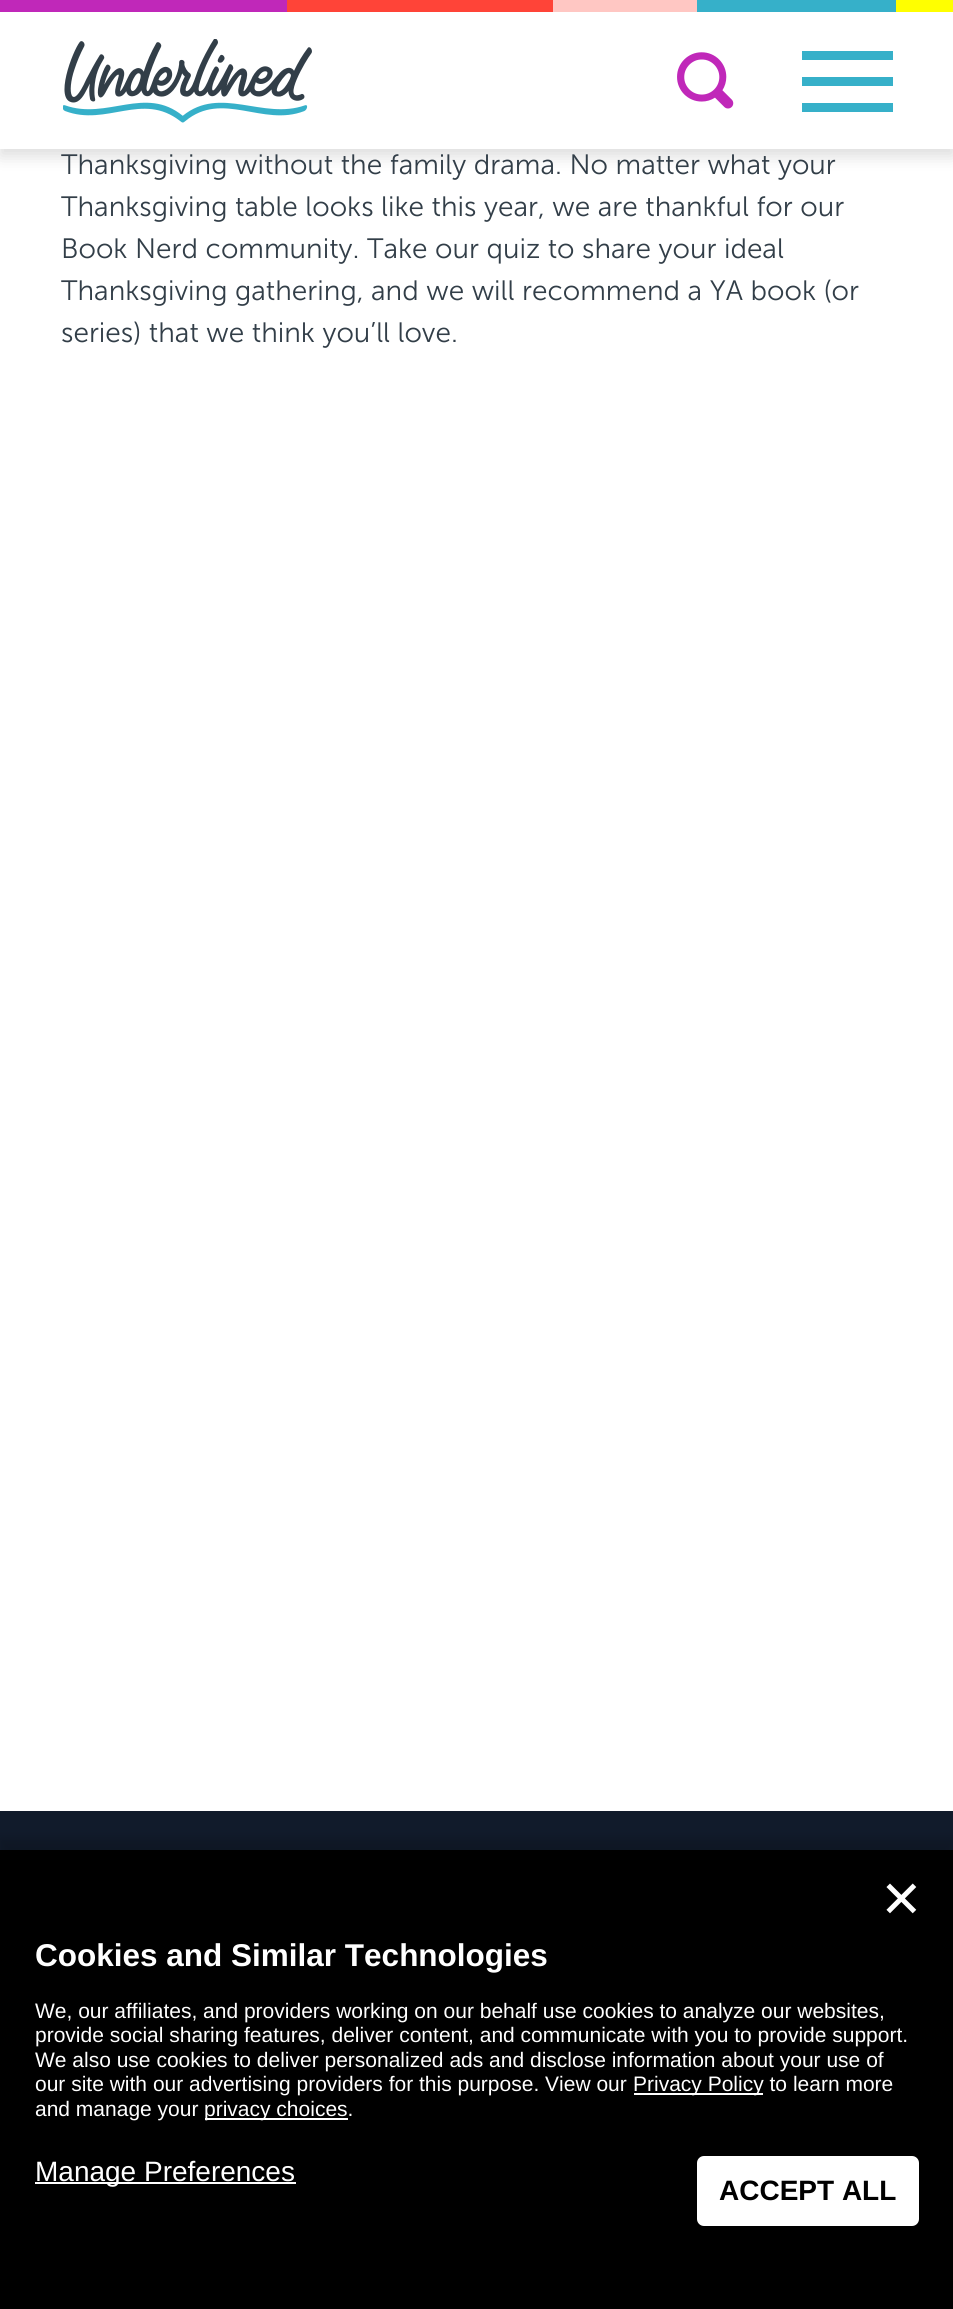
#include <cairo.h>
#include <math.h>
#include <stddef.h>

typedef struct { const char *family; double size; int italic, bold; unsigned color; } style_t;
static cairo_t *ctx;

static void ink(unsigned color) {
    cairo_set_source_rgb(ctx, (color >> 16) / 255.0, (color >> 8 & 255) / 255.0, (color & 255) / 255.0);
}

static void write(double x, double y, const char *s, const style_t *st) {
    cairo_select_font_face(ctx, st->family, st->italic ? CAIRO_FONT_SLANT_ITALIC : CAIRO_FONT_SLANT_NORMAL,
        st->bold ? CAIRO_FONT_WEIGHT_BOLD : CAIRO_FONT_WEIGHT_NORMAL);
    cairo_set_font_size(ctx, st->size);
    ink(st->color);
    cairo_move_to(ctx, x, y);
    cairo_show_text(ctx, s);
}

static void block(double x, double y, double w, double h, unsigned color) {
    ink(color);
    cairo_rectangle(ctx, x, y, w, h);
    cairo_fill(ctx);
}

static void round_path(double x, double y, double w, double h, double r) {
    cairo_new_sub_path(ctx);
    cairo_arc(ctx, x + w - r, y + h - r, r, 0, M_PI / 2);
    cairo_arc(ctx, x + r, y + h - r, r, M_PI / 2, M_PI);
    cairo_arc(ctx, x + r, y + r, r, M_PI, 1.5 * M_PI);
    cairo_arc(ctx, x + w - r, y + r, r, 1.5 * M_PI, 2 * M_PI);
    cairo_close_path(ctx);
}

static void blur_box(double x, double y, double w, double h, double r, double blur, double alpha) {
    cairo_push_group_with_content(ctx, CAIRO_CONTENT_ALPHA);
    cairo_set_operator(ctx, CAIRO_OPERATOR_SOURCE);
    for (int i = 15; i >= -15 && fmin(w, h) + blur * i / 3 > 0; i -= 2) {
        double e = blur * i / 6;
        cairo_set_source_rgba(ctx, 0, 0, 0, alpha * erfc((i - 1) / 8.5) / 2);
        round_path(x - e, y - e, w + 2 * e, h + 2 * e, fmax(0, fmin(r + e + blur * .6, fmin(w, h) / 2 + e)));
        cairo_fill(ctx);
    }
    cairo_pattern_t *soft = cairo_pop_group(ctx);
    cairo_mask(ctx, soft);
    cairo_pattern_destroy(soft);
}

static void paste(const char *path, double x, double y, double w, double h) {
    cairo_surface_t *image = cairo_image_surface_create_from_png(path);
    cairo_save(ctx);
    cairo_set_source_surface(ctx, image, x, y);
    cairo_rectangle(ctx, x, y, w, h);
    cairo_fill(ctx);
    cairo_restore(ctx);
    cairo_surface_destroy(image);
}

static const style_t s1 = {"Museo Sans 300 Light", 28, 0, 0, 0x323e48};
static const style_t s2 = {"DejaVu Sans", 51, 0, 0, 0xffffff};
static const style_t s3 = {"Liberation Sans", 31.5, 0, 1, 0xffffff};
static const style_t s4 = {"Liberation Sans", 21, 0, 0, 0xffffff};
static const style_t s5 = {"Liberation Sans", 28, 0, 0, 0xffffff};
static const style_t s6 = {"Liberation Sans", 28, 0, 1, 0x000000};

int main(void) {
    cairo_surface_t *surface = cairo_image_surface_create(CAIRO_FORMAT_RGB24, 953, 2309);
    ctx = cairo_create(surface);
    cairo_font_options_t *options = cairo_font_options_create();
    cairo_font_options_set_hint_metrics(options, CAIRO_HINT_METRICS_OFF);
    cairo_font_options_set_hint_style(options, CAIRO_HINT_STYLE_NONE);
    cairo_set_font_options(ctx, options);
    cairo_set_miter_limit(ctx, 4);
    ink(0xffffff);
    cairo_paint(ctx);
    ink(0x000000);
    blur_box(0, 7, 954, 149, 0, 8, 0.14);
    block(0, 0, 287, 12, 0xc028b9);
    block(287, 0, 266, 12, 0xff4438);
    block(553, 0, 144, 12, 0xffc7c3);
    block(697, 0, 199, 12, 0x36b0c9);
    block(896, 0, 57, 12, 0xffff00);
    block(0, 12, 953, 137, 0xffffff);
    paste("pic1.png", 63, 39, 249, 84);
    paste("pic2.png", 677, 52, 57, 57);
    block(802, 51, 91, 9, 0x36b0c9);
    block(802, 77, 91, 9, 0x36b0c9);
    block(802, 103, 91, 9, 0x36b0c9);
    write(61, 174, "Thanksgiving without the family drama. No matter what your", &s1);
    write(61, 216, "Thanksgiving table looks like this year, we are thankful for our", &s1);
    write(61, 258, "Book Nerd community. Take our quiz to share your ideal", &s1);
    write(61, 300, "Thanksgiving gathering, and we will recommend a YA book (or", &s1);
    write(61, 342, "series) that we think you’ll love.", &s1);
    block(0, 1811, 953, 39, 0x111b2b);
    ink(0x000000);
    blur_box(0, 1839, 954, 461, 0, 5, 0.16);
    block(0, 1850, 953, 459, 0x000000);
    write(880, 1917, "✕", &s2);
    write(35, 1966, "Cookies and Similar Technologies", &s3);
    write(35, 2018, "We, our affiliates, and providers working on our behalf use cookies to analyze our websites,", &s4);
    write(35, 2042, "provide social sharing features, deliver content, and communicate with you to provide support.", &s4);
    write(35, 2067, "We also use cookies to deliver personalized ads and disclose information about your use of", &s4);
    write(35, 2091, "our site with our advertising providers for this purpose. View our", &s4);
    block(634, 2093, 129, 2, 0xffffff);
    write(633, 2091, "Privacy Policy to learn more", &s4);
    write(35, 2116, "and manage your", &s4);
    block(205, 2118, 143, 2, 0xffffff);
    write(204, 2116, "privacy choices.", &s4);
    block(35, 2182, 261, 2, 0xffffff);
    write(35, 2181, "Manage Preferences", &s5);
    round_path(699, 2158, 218, 66, 5);
    cairo_fill_preserve(ctx);
    cairo_set_line_width(ctx, 4);
    cairo_stroke(ctx);
    write(719, 2200, "ACCEPT ALL", &s6);
    cairo_surface_write_to_png(surface, "screenshot.png");
    cairo_font_options_destroy(options);
    cairo_destroy(ctx);
    cairo_surface_destroy(surface);
    return 0;
}
